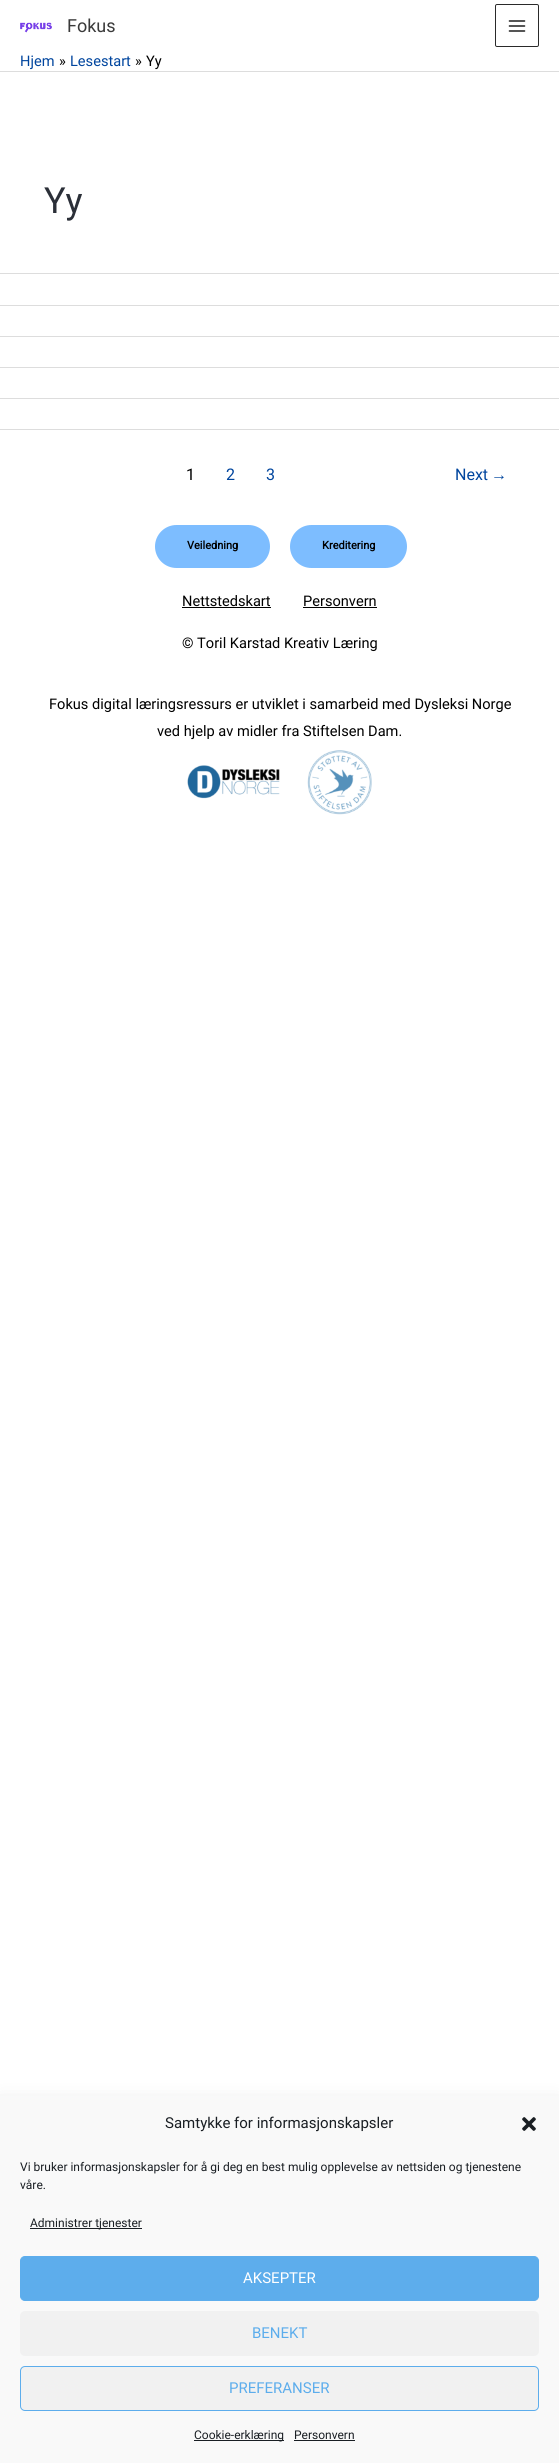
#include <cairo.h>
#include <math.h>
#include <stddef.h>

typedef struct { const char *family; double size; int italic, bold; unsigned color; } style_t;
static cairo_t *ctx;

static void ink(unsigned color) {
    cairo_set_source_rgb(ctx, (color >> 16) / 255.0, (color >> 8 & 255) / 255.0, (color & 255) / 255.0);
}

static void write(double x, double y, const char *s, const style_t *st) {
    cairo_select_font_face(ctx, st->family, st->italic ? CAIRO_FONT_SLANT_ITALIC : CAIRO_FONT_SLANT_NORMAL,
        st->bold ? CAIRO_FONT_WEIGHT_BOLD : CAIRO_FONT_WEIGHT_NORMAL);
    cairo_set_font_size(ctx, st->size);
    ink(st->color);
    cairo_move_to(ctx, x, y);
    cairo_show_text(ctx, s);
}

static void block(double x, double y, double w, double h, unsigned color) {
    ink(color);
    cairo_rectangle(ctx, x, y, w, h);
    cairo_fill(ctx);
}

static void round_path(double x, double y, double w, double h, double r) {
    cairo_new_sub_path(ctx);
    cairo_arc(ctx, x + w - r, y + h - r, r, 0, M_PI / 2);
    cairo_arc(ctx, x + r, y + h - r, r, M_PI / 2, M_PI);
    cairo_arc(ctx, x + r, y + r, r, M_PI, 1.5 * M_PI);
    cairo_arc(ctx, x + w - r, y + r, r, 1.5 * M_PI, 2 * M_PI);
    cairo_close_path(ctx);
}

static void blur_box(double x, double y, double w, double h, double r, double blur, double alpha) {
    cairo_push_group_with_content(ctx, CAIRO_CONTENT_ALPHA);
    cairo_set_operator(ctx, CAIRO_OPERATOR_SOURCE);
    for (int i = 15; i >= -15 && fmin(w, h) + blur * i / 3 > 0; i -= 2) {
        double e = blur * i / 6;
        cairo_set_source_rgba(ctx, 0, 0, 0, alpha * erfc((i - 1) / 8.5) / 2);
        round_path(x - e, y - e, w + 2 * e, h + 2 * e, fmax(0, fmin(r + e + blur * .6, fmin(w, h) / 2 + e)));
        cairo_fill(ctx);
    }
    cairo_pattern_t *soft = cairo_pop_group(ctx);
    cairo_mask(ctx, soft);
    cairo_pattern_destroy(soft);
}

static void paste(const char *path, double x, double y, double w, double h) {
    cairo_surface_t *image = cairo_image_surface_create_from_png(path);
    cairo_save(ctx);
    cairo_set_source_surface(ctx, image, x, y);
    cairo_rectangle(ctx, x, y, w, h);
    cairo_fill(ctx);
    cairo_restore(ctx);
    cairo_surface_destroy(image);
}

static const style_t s1 = {"Roboto", 18, 0, 0, 0x3a3a3a};
static const style_t s2 = {"Roboto", 14.6, 0, 0, 0x00459e};
static const style_t s3 = {"Roboto", 14.6, 0, 0, 0x000000};
static const style_t s4 = {"Roboto", 36, 0, 0, 0x2b2f38};
static const style_t s5 = {"Roboto", 16, 0, 0, 0x000000};
static const style_t s6 = {"Roboto", 16, 0, 0, 0x00459e};
static const style_t s7 = {"Liberation Sans", 16, 0, 0, 0x00459e};
static const style_t s8 = {"Roboto", 11, 0, 1, 0x000000};
static const style_t s9 = {"Roboto", 15, 0, 0, 0x191e23};
static const style_t s10 = {"Roboto", 12, 0, 0, 0x191e23};
static const style_t s11 = {"Roboto", 15, 0, 0, 0xffffff};
static const style_t s12 = {"Roboto", 15, 0, 0, 0x5dadec};

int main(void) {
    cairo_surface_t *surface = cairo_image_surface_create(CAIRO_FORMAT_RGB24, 559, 2463);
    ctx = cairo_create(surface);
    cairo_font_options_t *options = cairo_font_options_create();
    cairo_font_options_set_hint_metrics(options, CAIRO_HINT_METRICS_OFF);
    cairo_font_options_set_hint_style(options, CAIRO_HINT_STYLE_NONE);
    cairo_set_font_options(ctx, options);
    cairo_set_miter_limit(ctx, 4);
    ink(0xffffff);
    cairo_paint(ctx);
    block(0, 71, 559, 1, 0xdddddd);
    paste("pic1.png", 20, 22, 32, 11);
    write(67, 32, "Fokus", &s1);
    round_path(495.5, 4.5, 43, 42, 1.5);
    ink(0x2a2a2a);
    cairo_set_line_width(ctx, 1);
    cairo_stroke(ctx);
    paste("pic2.png", 508, 20, 18, 12);
    write(20, 66, "Hjem", &s2);
    write(59, 66, "»", &s3);
    write(70, 66, "Lesestart", &s2);
    write(135, 66, "»", &s3);
    write(146, 66, "Yy", &s3);
    block(0, 273, 559, 1, 0xdddddd);
    write(44, 213, "Yy", &s4);
    block(0, 305, 559, 1, 0xdddddd);
    block(0, 336, 559, 1, 0xdddddd);
    block(0, 367, 559, 1, 0xdddddd);
    block(0, 398, 559, 1, 0xdddddd);
    block(0, 429, 559, 1, 0xdddddd);
    write(186, 480, "1", &s5);
    write(226, 480, "2", &s6);
    write(266, 480, "3", &s6);
    write(455, 480, "Next", &s6);
    write(491, 480, "→", &s7);
    ink(0x7dbdff);
    round_path(155, 525, 115, 43, 21.5);
    cairo_fill(ctx);
    write(187, 549, "Veiledning", &s8);
    ink(0x7dbdff);
    round_path(290, 525, 117, 43, 21.5);
    cairo_fill(ctx);
    write(322, 549, "Kreditering", &s8);
    write(182, 606, "Nettstedskart", &s3);
    block(182, 607, 89, 1, 0x000000);
    write(303, 606, "Personvern", &s3);
    block(303, 607, 74, 1, 0x000000);
    write(182, 648, "© Toril Karstad Kreativ Læring", &s3);
    write(49, 709, "Fokus digital læringsressurs er utviklet i samarbeid med Dysleksi Norge", &s3);
    write(157, 736, "ved hjelp av midler fra Stiftelsen Dam.", &s3);
    paste("pic3.png", 187, 750, 185, 65);
    ink(0x000000);
    blur_box(0, 2105, 559, 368, 0, 10, 0.19);
    block(0, 2096, 559, 367, 0xf9f9f9);
    write(165, 2128, "Samtykke for informasjonskapsler", &s9);
    paste("pic4.png", 522, 2117, 14, 14);
    write(20, 2171, "Vi bruker informasjonskapsler for å gi deg en best mulig opplevelse av nettsiden og tjenestene", &s10);
    write(20, 2189, "våre.", &s10);
    block(30, 2228, 112, 1, 0x191e23);
    write(30, 2227, "Administrer tjenester", &s10);
    ink(0x5dadec);
    round_path(20.5, 2256.5, 518, 44, 4.5);
    cairo_fill_preserve(ctx);
    cairo_stroke(ctx);
    write(243, 2283, "AKSEPTER", &s11);
    ink(0xf1f1f1);
    round_path(20, 2311, 519, 45, 5);
    cairo_fill(ctx);
    write(252, 2338, "BENEKT", &s12);
    ink(0xf1f1f1);
    round_path(20.5, 2366.5, 518, 44, 4.5);
    cairo_fill_preserve(ctx);
    ink(0x5dadec);
    cairo_stroke(ctx);
    write(229, 2393, "PREFERANSER", &s12);
    block(194, 2440, 90, 1, 0x191e23);
    write(194, 2439, "Cookie-erklæring", &s10);
    write(294, 2439, "Personvern", &s10);
    block(294, 2440, 61, 1, 0x191e23);
    cairo_surface_write_to_png(surface, "screenshot.png");
    cairo_font_options_destroy(options);
    cairo_destroy(ctx);
    cairo_surface_destroy(surface);
    return 0;
}
